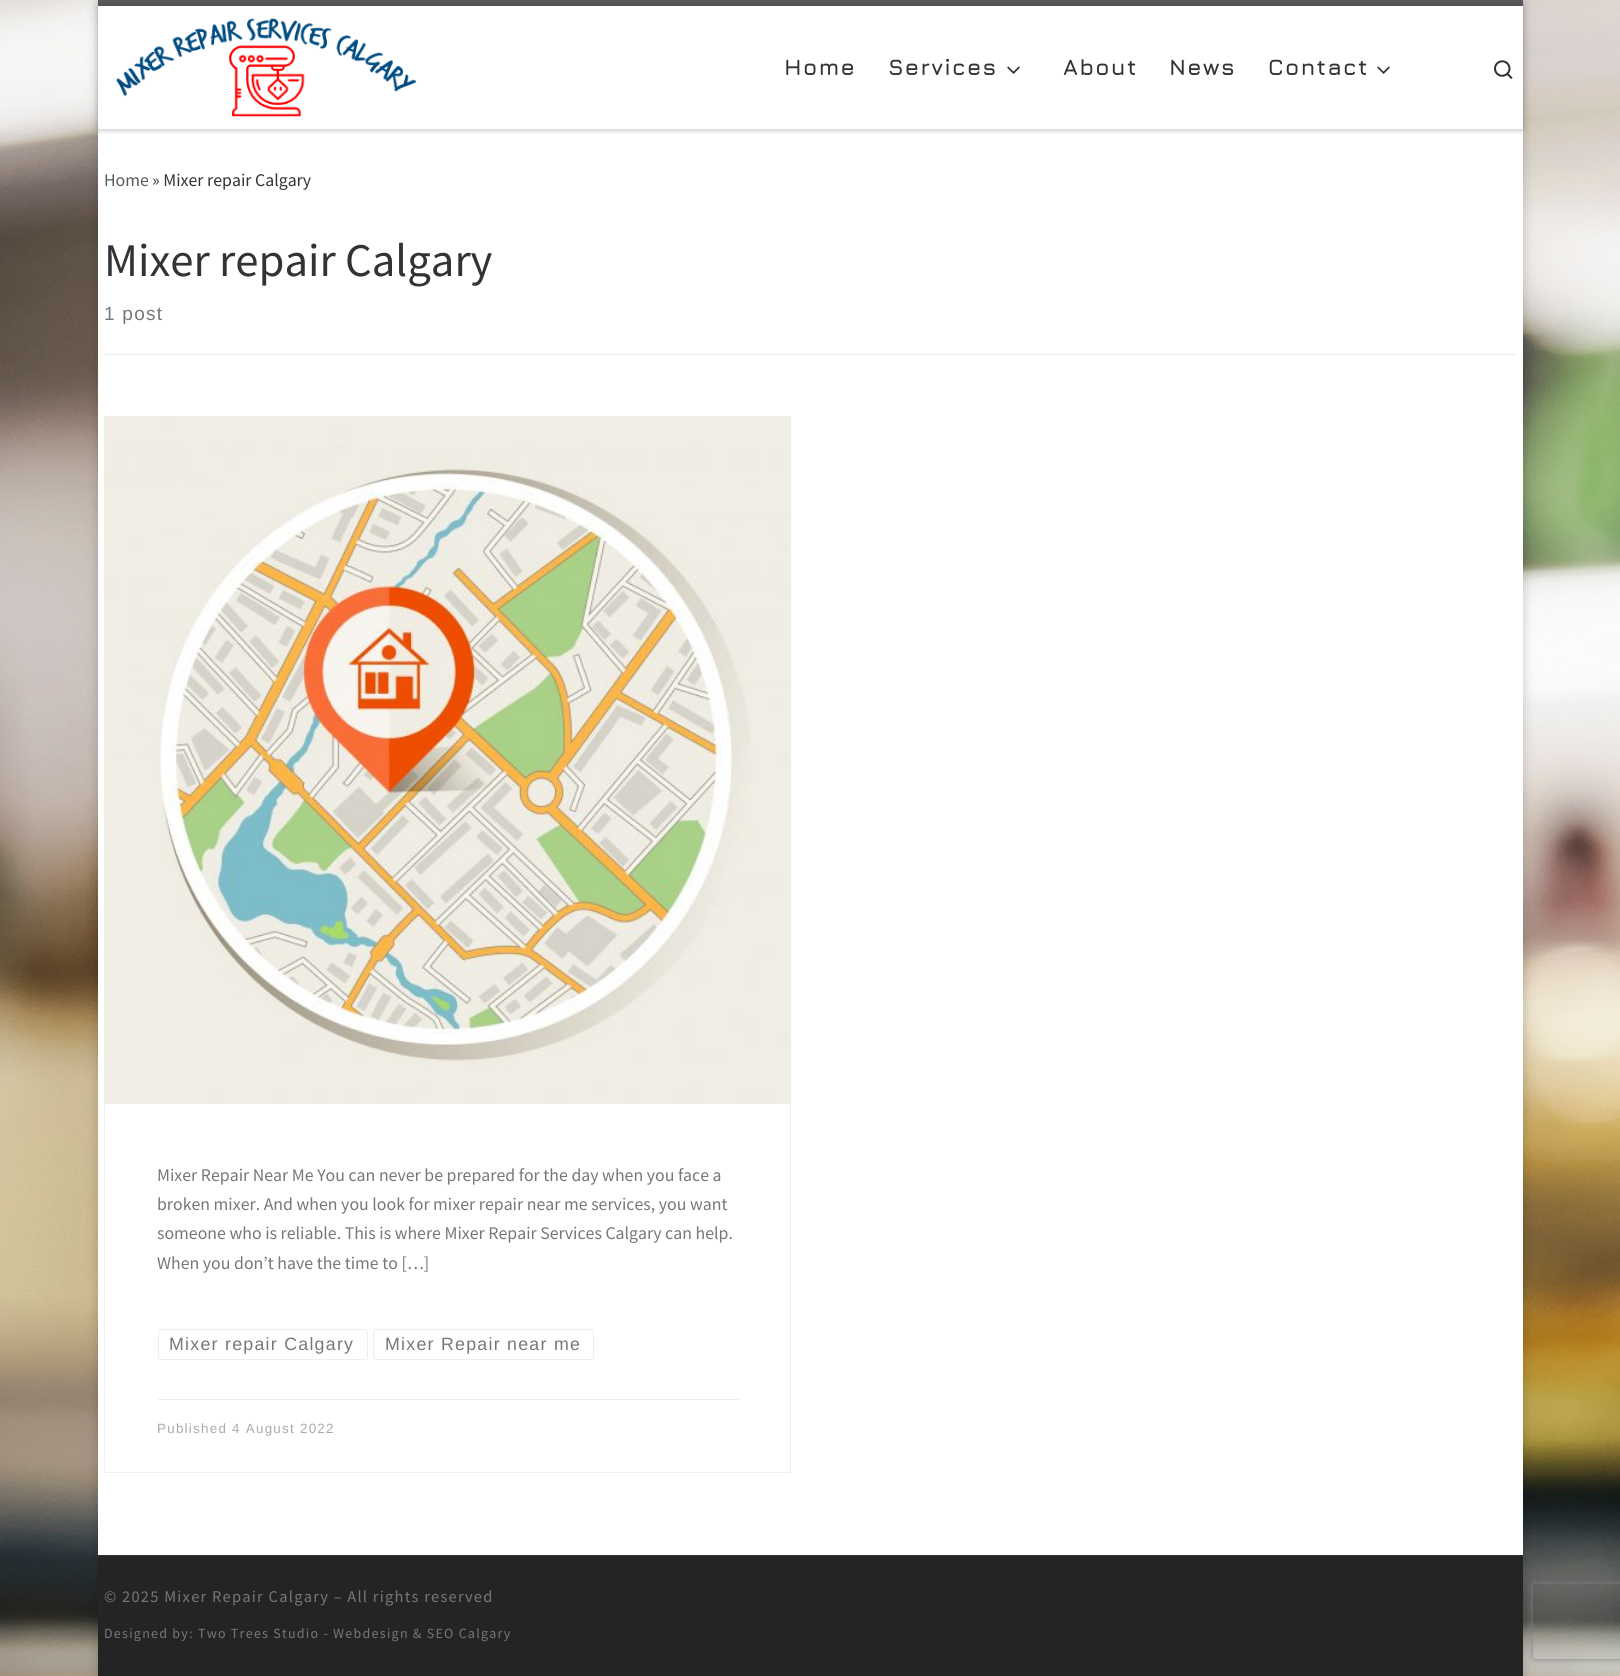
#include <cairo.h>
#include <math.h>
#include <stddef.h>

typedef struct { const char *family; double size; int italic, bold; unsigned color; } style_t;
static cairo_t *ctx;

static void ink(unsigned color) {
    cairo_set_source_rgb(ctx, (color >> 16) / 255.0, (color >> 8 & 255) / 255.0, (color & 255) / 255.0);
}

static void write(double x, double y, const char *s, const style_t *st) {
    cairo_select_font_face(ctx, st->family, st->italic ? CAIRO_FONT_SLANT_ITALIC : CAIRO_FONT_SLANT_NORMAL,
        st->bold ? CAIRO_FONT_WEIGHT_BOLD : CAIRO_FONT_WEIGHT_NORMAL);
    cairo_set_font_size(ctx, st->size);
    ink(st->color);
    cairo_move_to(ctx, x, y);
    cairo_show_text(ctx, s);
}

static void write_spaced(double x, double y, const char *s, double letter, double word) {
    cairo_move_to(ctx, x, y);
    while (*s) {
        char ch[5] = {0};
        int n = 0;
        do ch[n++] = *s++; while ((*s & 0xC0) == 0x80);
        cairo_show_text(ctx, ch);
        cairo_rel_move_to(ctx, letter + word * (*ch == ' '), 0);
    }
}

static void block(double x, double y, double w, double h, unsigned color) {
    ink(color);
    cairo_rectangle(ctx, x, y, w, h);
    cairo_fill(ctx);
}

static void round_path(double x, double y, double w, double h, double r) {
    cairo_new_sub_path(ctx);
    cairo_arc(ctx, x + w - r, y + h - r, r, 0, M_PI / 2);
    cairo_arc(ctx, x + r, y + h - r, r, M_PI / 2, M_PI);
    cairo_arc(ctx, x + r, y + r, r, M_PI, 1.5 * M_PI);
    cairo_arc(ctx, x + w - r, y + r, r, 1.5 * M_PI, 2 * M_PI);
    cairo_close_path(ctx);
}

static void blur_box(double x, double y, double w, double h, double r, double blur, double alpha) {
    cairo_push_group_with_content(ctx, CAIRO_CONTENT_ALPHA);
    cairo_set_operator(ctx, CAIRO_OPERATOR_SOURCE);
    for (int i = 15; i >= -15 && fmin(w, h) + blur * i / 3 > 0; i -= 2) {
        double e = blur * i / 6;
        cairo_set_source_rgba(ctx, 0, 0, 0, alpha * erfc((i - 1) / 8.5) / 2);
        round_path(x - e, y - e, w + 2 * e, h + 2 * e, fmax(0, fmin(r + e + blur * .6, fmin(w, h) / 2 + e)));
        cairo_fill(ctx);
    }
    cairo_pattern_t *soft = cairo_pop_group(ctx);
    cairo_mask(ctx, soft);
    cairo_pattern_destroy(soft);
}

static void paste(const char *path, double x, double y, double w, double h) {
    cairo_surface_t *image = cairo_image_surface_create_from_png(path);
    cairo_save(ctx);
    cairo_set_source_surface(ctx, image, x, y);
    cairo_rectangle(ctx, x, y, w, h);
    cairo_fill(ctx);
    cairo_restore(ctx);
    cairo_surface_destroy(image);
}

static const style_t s1 = {"Source Sans Pro", 17.8, 0, 0, 0x5a5a5a};
static const style_t s2 = {"Source Sans Pro", 17.8, 0, 0, 0x333333};
static const style_t s3 = {"Source Sans Pro", 46.75, 0, 0, 0x333333};
static const style_t s4 = {"Source Sans Pro", 17.8, 0, 0, 0x777777};

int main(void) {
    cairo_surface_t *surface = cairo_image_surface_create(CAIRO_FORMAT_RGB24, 1620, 1676);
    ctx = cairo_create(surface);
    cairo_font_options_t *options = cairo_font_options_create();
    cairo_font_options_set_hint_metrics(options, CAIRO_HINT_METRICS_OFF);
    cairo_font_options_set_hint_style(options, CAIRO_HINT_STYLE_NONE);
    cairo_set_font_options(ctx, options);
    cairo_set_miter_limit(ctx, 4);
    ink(0xffffff);
    cairo_paint(ctx);
    paste("pic1.png", 0, 0, 1620, 1676);
    ink(0x000000);
    blur_box(98, 0, 1425, 1676, 0, 6, 0.2);
    block(98, 130, 1425, 1425, 0xffffff);
    ink(0x666666);
    blur_box(98, 3, 1425, 130, 0, 1, 0.08);
    block(98, 0, 1425, 6, 0x5a5a5a);
    block(98, 129, 1425, 1, 0xececec);
    cairo_set_source_rgba(ctx, 1, 1, 1, 0.15);
    cairo_new_path(ctx);
    cairo_move_to(ctx, 98, 129);
    cairo_line_to(ctx, 98, 130);
    cairo_line_to(ctx, 1523, 130);
    cairo_line_to(ctx, 1523, 8);
    cairo_line_to(ctx, 1522, 8);
    cairo_line_to(ctx, 1522, 129);
    cairo_close_path(ctx);
    cairo_fill(ctx);
    ink(0x000000);
    blur_box(98, 6, 1425, 123, 0, 3, 0.2);
    block(98, 6, 1425, 123, 0xffffff);
    paste("pic2.png", 116, 18, 301, 99);
    cairo_select_font_face(ctx, "Jura Light", CAIRO_FONT_SLANT_NORMAL, CAIRO_FONT_WEIGHT_NORMAL);
    cairo_set_font_size(ctx, 22.5);
    ink(0x333333);
    write_spaced(784, 75, "Home", 1.25, 0);
    write_spaced(888, 75, "Services", 1.25, 0);
    paste("pic3.png", 1007, 66, 13, 8);
    write_spaced(1063, 75, "About", 1.25, 0);
    write_spaced(1169, 75, "News", 1.25, 0);
    write_spaced(1268, 75, "Contact", 1.25, 0);
    paste("pic3.png", 1377, 66, 13, 8);
    paste("pic4.png", 1494, 60, 19, 19);
    write(104, 186, "Home", &s1);
    write(152, 186, "» Mixer repair Calgary", &s2);
    write(104, 276, "Mixer repair Calgary", &s3);
    cairo_select_font_face(ctx, "Liberation Sans", CAIRO_FONT_SLANT_NORMAL, CAIRO_FONT_WEIGHT_NORMAL);
    cairo_set_font_size(ctx, 19);
    ink(0x777777);
    write_spaced(104, 320, "1 post", 1.25, 0);
    block(104, 354, 1412, 1, 0xeceeef);
    cairo_rectangle(ctx, 104.5, 416.5, 686, 1056);
    ink(0xefefef);
    cairo_set_line_width(ctx, 1);
    cairo_stroke(ctx);
    paste("pic5.png", 104, 416, 687, 688);
    write(157, 1181, "Mixer Repair Near Me You can never be prepared for the day when you face a", &s4);
    write(157, 1210, "broken mixer. And when you look for mixer repair near me services, you want", &s4);
    write(157, 1239, "someone who is reliable. This is where Mixer Repair Services Calgary can help.", &s4);
    write(157, 1269, "When you don’t have the time to […]", &s4);
    round_path(158.5, 1329.5, 209, 30, 2);
    ink(0xeceeef);
    cairo_stroke(ctx);
    cairo_select_font_face(ctx, "Liberation Sans", CAIRO_FONT_SLANT_NORMAL, CAIRO_FONT_WEIGHT_NORMAL);
    ink(0x777777);
    write_spaced(169, 1350, "Mixer repair Calgary", 1.25, 0);
    round_path(373.5, 1329.5, 220, 30, 2);
    ink(0xeceeef);
    cairo_stroke(ctx);
    ink(0x777777);
    write_spaced(385, 1350, "Mixer Repair near me", 1.25, 0);
    block(158, 1399, 581, 1, 0xeceeef);
    cairo_set_font_size(ctx, 13.4);
    ink(0xaaaaaa);
    write_spaced(157, 1433, "Published 4 August 2022", 1.25, 0);
    block(98, 1555, 1425, 1, 0x313131);
    block(98, 1556, 1425, 120, 0x242424);
    cairo_select_font_face(ctx, "Source Sans Pro", CAIRO_FONT_SLANT_NORMAL, CAIRO_FONT_WEIGHT_NORMAL);
    cairo_set_font_size(ctx, 16.4);
    ink(0x777777);
    write_spaced(104, 1602, "© 2025 Mixer Repair Calgary – All rights reserved", 1.25, 0);
    cairo_set_font_size(ctx, 14);
    write_spaced(104, 1638, "Designed by: Two Trees Studio - Webdesign & SEO Calgary", 1.25, 0);
    cairo_save(ctx);
    cairo_set_fill_rule(ctx, CAIRO_FILL_RULE_EVEN_ODD);
    cairo_new_path(ctx);
    cairo_move_to(ctx, 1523, 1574);
    cairo_line_to(ctx, 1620, 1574);
    cairo_line_to(ctx, 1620, 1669);
    cairo_line_to(ctx, 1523, 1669);
    cairo_close_path(ctx);
    cairo_move_to(ctx, 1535.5, 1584);
    cairo_line_to(ctx, 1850.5, 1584);
    cairo_curve_to(ctx, 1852, 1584, 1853, 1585, 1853, 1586.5);
    cairo_line_to(ctx, 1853, 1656.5);
    cairo_curve_to(ctx, 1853, 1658, 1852, 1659, 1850.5, 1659);
    cairo_line_to(ctx, 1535.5, 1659);
    cairo_curve_to(ctx, 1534, 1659, 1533, 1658, 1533, 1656.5);
    cairo_line_to(ctx, 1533, 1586.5);
    cairo_curve_to(ctx, 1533, 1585, 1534, 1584, 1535.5, 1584);
    cairo_close_path(ctx);
    cairo_clip(ctx);
    ink(0x808080);
    blur_box(1533, 1584, 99, 75, 2.5, 3, 1);
    cairo_restore(ctx);
    cairo_surface_write_to_png(surface, "screenshot.png");
    cairo_font_options_destroy(options);
    cairo_destroy(ctx);
    cairo_surface_destroy(surface);
    return 0;
}
